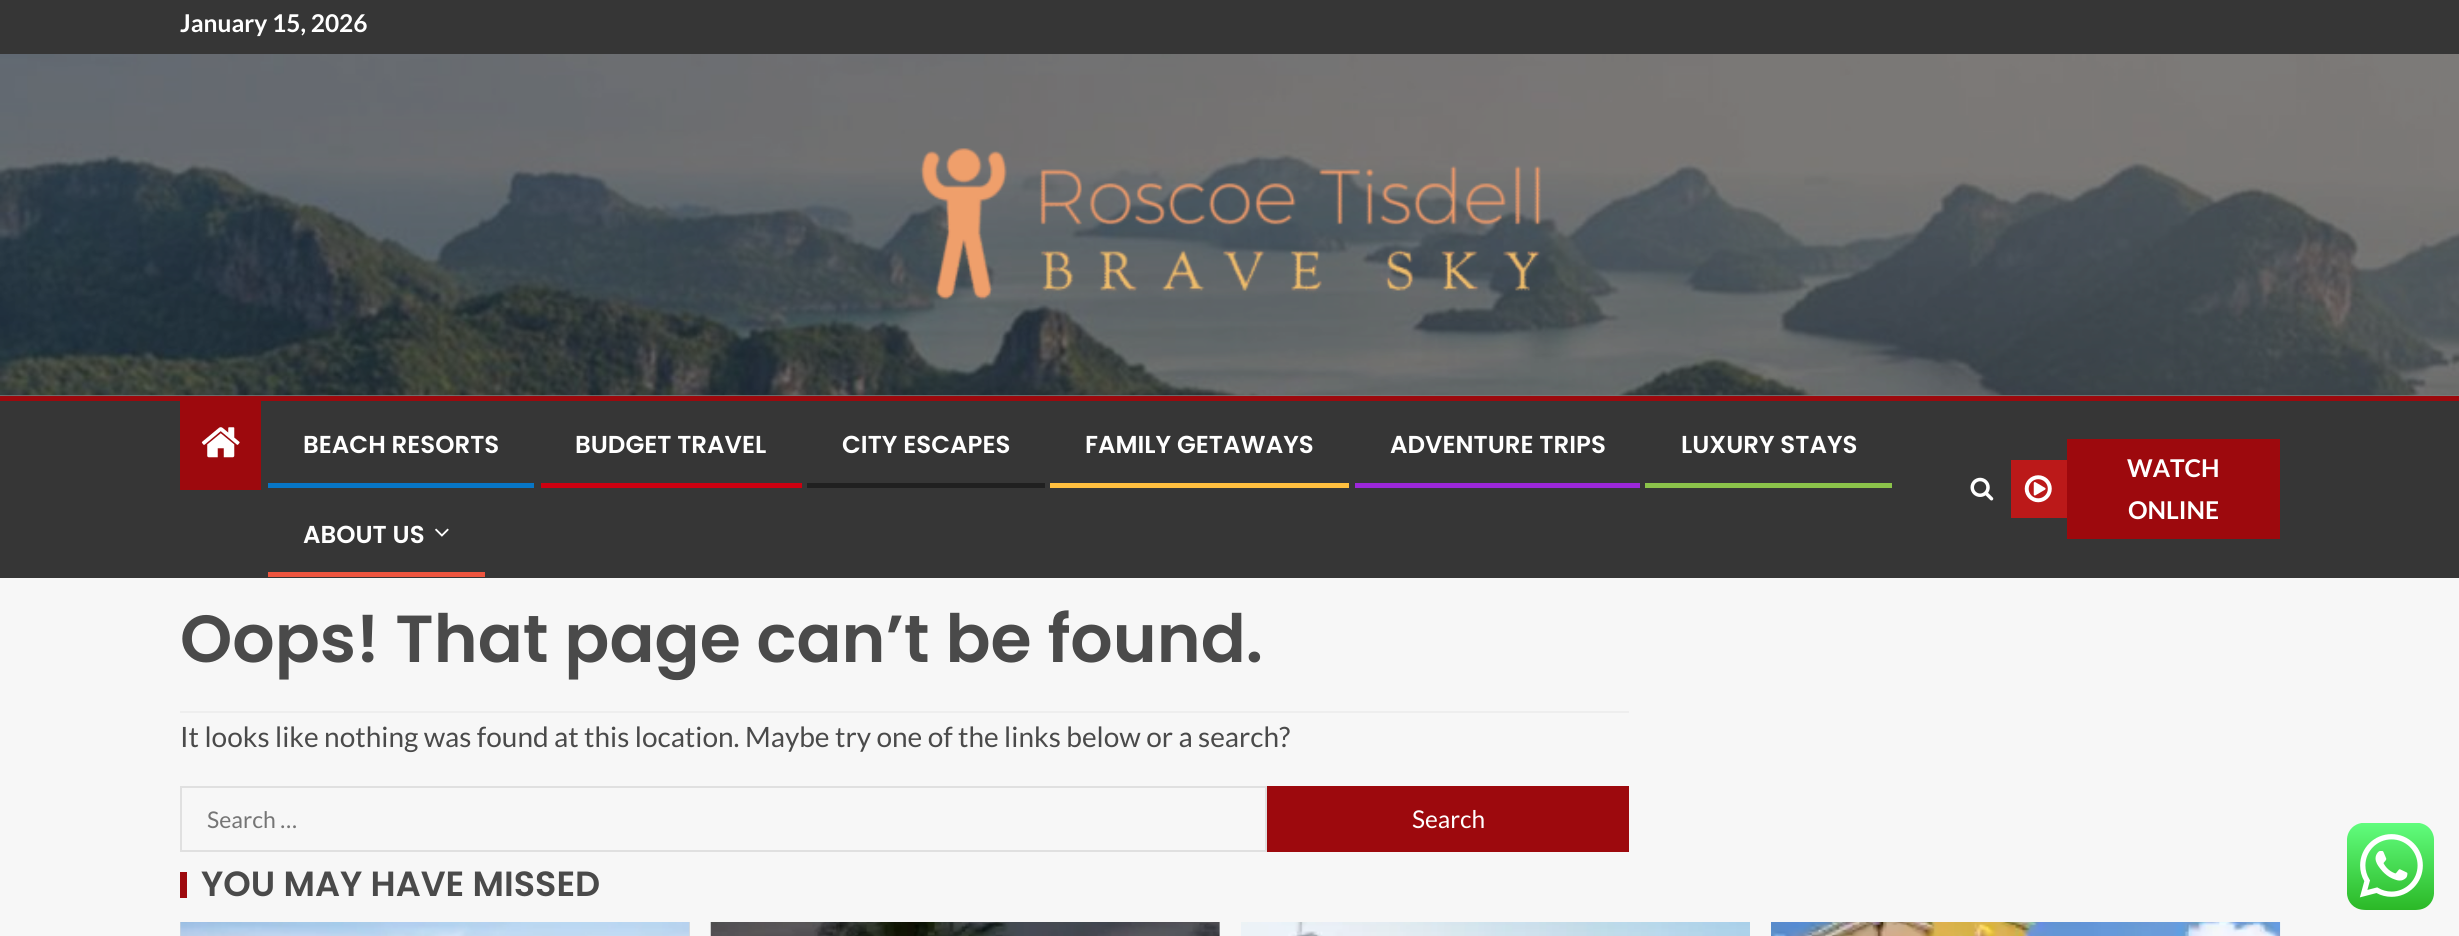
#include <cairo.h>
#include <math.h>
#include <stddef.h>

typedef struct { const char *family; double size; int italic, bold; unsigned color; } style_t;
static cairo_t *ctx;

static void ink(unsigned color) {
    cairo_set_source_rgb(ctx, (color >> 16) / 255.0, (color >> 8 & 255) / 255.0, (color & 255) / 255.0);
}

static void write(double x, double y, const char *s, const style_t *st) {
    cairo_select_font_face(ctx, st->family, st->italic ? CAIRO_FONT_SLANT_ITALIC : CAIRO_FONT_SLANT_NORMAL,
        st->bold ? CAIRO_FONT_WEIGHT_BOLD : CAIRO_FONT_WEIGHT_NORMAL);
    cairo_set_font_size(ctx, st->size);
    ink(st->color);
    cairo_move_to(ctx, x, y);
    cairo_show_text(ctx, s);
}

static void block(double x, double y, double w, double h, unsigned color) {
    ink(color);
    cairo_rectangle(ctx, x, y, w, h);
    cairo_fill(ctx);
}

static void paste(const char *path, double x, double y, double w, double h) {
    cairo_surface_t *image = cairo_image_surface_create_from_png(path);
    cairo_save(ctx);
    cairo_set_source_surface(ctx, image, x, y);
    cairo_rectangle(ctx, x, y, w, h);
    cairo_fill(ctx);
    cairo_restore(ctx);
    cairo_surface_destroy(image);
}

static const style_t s1 = {"Lato", 24.5, 0, 1, 0xffffff};
static const style_t s2 = {"Poppins SemiBold", 24.5, 0, 0, 0xffffff};
static const style_t s3 = {"Poppins SemiBold", 66.5, 0, 0, 0x4a4a4a};
static const style_t s4 = {"Lato", 28, 0, 0, 0x4a4a4a};
static const style_t s5 = {"Lato", 23, 0, 0, 0x757575};
static const style_t s6 = {"Lato", 24.5, 0, 0, 0xffffff};
static const style_t s7 = {"Poppins SemiBold", 35, 0, 0, 0x4a4a4a};

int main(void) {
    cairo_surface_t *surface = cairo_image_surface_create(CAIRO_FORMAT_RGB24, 2459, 936);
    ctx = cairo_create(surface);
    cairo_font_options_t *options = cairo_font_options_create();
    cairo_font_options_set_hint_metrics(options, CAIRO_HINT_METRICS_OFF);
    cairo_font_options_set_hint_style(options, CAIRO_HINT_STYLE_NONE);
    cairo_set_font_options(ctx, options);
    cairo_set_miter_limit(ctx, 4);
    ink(0xf7f7f7);
    cairo_paint(ctx);
    block(0, 395, 2459, 1, 0x7c7c7c);
    block(0, 0, 2459, 54, 0x363636);
    write(180, 32, "January 15, 2026", &s1);
    paste("pic1.png", 0, 54, 2459, 342);
    paste("pic2.png", 920, 148, 622, 152);
    block(0, 401, 2459, 177, 0x363636);
    block(0, 396, 2459, 5, 0x9d090d);
    block(180, 401, 81, 89, 0x9d090d);
    paste("pic3.png", 201, 427, 39, 31);
    write(303, 453, "BEACH RESORTS", &s2);
    block(268, 483, 266, 5, 0x0776c6);
    write(575, 453, "BUDGET TRAVEL", &s2);
    block(541, 483, 261, 5, 0xcc0010);
    write(842, 453, "CITY ESCAPES", &s2);
    block(807, 483, 238, 5, 0x202020);
    write(1085, 453, "FAMILY GETAWAYS", &s2);
    block(1050, 483, 299, 5, 0xffbf3f);
    write(1390, 453, "ADVENTURE TRIPS", &s2);
    block(1355, 483, 285, 5, 0x9c27d9);
    write(1681, 453, "LUXURY STAYS", &s2);
    block(1645, 483, 247, 5, 0x8bc34a);
    write(303, 543, "ABOUT US", &s2);
    paste("pic4.png", 435, 528, 14, 9);
    block(268, 572, 217, 5, 0xed553f);
    paste("pic5.png", 1970, 477, 24, 24);
    block(2011, 460, 56, 58, 0xbb1919);
    paste("pic6.png", 2024, 475, 28, 28);
    block(2067, 439, 213, 100, 0x9d090d);
    write(2127, 477, "WATCH", &s1);
    write(2128, 519, "ONLINE", &s1);
    block(180, 711, 1449, 2, 0xeeeeee);
    write(180, 662, "Oops! That page can’t be found.", &s3);
    write(180, 747, "It looks like nothing was found at this location. Maybe try one of the links below or a search?", &s4);
    cairo_rectangle(ctx, 181, 787, 1085, 64);
    ink(0xe0e0e0);
    cairo_stroke(ctx);
    write(207, 828, "Search …", &s5);
    block(1267, 786, 362, 66, 0x9d090d);
    write(1412, 828, "Search", &s6);
    block(180, 872, 7, 26, 0x9d090d);
    write(201, 896, "YOU MAY HAVE MISSED", &s7);
    block(180, 922, 510, 14, 0xdadada);
    paste("pic7.png", 180, 922, 510, 14);
    block(1219, 922, 1, 14, 0xdadada);
    paste("pic8.png", 710, 922, 510, 14);
    paste("pic9.png", 1241, 922, 509, 14);
    paste("pic10.png", 1771, 922, 510, 14);
    paste("pic11.png", 2347, 823, 87, 87);
    cairo_surface_write_to_png(surface, "screenshot.png");
    cairo_font_options_destroy(options);
    cairo_destroy(ctx);
    cairo_surface_destroy(surface);
    return 0;
}
